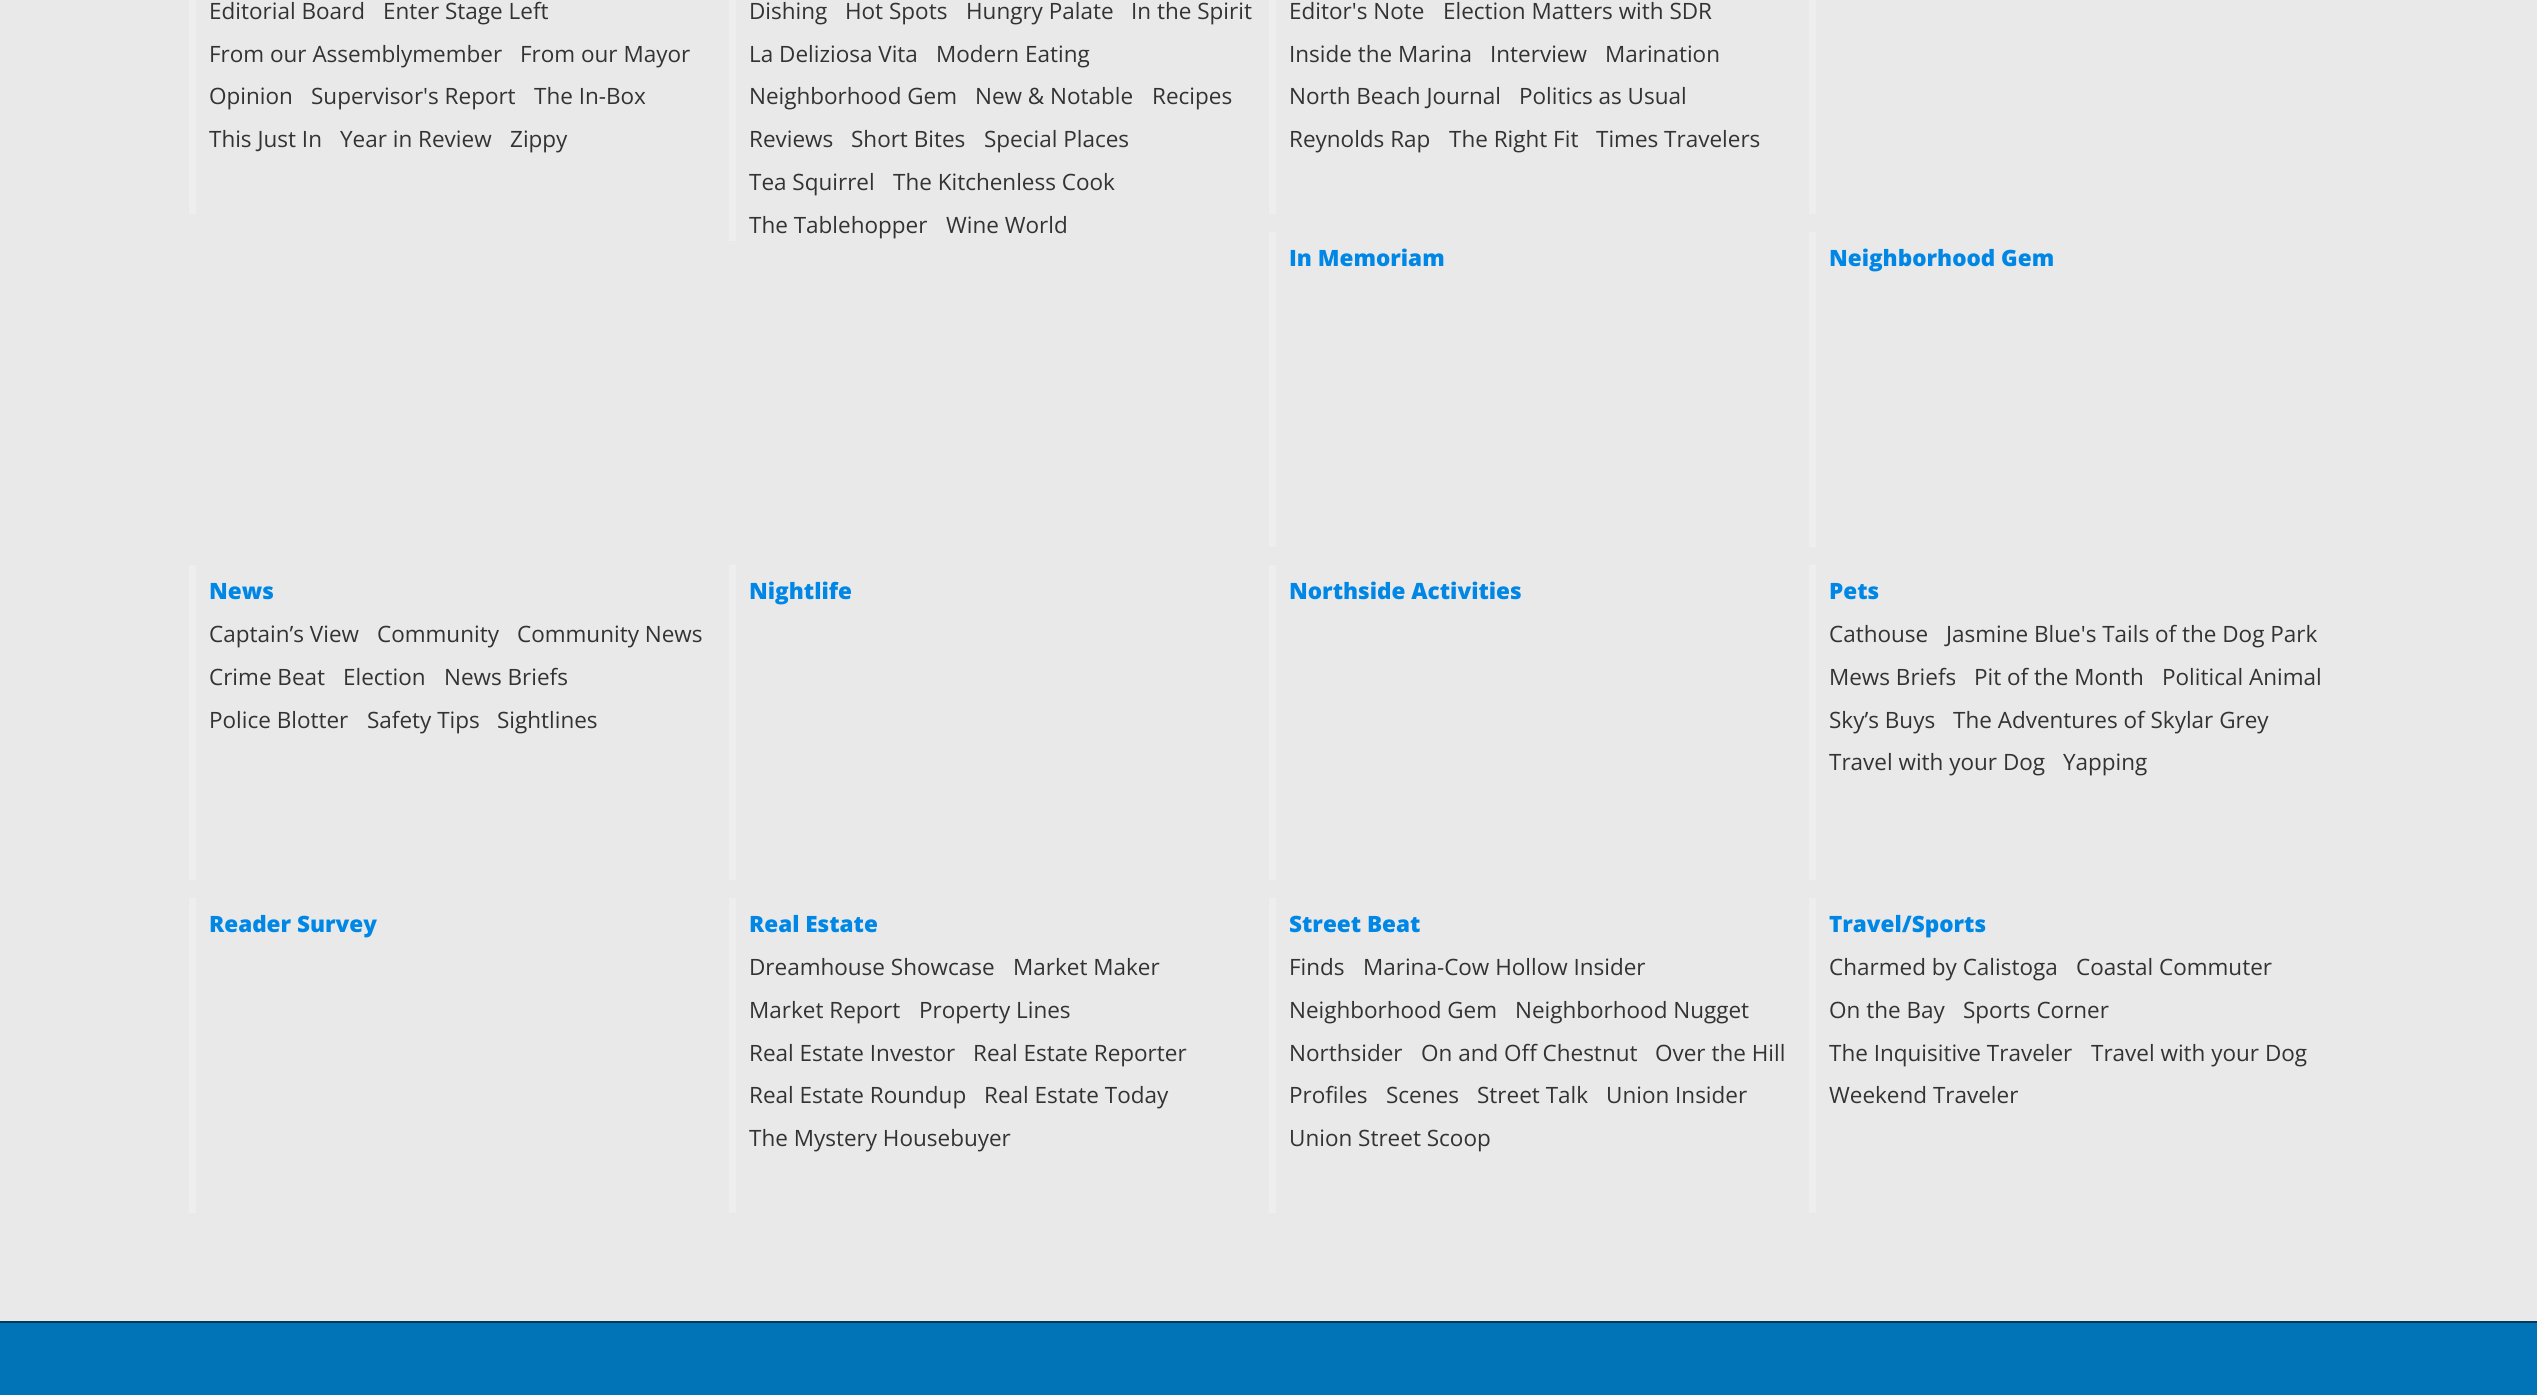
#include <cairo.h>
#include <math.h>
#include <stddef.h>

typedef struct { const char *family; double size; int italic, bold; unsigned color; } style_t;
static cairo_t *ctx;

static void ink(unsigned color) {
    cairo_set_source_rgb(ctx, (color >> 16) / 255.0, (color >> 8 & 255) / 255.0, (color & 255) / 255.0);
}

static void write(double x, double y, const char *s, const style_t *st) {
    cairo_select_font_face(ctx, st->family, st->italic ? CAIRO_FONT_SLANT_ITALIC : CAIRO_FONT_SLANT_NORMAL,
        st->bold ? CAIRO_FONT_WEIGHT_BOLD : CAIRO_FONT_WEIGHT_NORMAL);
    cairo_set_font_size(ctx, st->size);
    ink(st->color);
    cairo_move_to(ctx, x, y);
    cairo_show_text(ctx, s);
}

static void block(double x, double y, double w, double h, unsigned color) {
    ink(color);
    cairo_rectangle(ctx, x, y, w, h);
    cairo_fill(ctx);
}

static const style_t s1 = {"Open Sans", 22.5, 0, 0, 0x333333};
static const style_t s2 = {"Open Sans ExtraBold", 22.5, 0, 0, 0x0087e6};

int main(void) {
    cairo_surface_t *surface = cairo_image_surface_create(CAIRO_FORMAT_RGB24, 2537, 1395);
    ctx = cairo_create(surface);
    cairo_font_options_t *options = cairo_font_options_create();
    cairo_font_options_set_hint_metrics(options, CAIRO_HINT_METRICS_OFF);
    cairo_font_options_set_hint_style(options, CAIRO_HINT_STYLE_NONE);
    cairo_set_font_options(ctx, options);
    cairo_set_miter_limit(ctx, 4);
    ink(0xe9e9e9);
    cairo_paint(ctx);
    block(189, 0, 7, 214, 0xeeeeee);
    write(209, 19, "Editorial Board", &s1);
    write(383, 19, "Enter Stage Left", &s1);
    write(209, 62, "From our Assemblymember", &s1);
    write(520, 62, "From our Mayor", &s1);
    write(209, 104, "Opinion", &s1);
    write(311, 104, "Supervisor's Report", &s1);
    write(534, 104, "The In-Box", &s1);
    write(209, 147, "This Just In", &s1);
    write(340, 147, "Year in Review", &s1);
    write(510, 147, "Zippy", &s1);
    block(729, 0, 7, 241, 0xeeeeee);
    write(749, 19, "Dishing", &s1);
    write(845, 19, "Hot Spots", &s1);
    write(966, 19, "Hungry Palate", &s1);
    write(1131, 19, "In the Spirit", &s1);
    write(749, 62, "La Deliziosa Vita", &s1);
    write(936, 62, "Modern Eating", &s1);
    write(749, 104, "Neighborhood Gem", &s1);
    write(975, 104, "New & Notable", &s1);
    write(1152, 104, "Recipes", &s1);
    write(749, 147, "Reviews", &s1);
    write(851, 147, "Short Bites", &s1);
    write(984, 147, "Special Places", &s1);
    write(749, 190, "Tea Squirrel", &s1);
    write(893, 190, "The Kitchenless Cook", &s1);
    write(749, 233, "The Tablehopper", &s1);
    write(946, 233, "Wine World", &s1);
    block(1269, 0, 7, 214, 0xeeeeee);
    write(1289, 19, "Editor's Note", &s1);
    write(1443, 19, "Election Matters with SDR", &s1);
    write(1289, 62, "Inside the Marina", &s1);
    write(1490, 62, "Interview", &s1);
    write(1605, 62, "Marination", &s1);
    write(1289, 104, "North Beach Journal", &s1);
    write(1519, 104, "Politics as Usual", &s1);
    write(1289, 147, "Reynolds Rap", &s1);
    write(1449, 147, "The Right Fit", &s1);
    write(1596, 147, "Times Travelers", &s1);
    block(1809, 0, 7, 214, 0xeeeeee);
    block(1269, 232, 7, 315, 0xeeeeee);
    write(1289, 266, "In Memoriam", &s2);
    block(1809, 232, 7, 315, 0xeeeeee);
    write(1829, 266, "Neighborhood Gem", &s2);
    block(189, 565, 7, 315, 0xeeeeee);
    write(209, 599, "News", &s2);
    write(209, 642, "Captain’s View", &s1);
    write(377, 642, "Community", &s1);
    write(517, 642, "Community News", &s1);
    write(209, 685, "Crime Beat", &s1);
    write(343, 685, "Election", &s1);
    write(444, 685, "News Briefs", &s1);
    write(209, 728, "Police Blotter", &s1);
    write(367, 728, "Safety Tips", &s1);
    write(497, 728, "Sightlines", &s1);
    block(729, 565, 7, 315, 0xeeeeee);
    write(749, 599, "Nightlife", &s2);
    block(1269, 565, 7, 315, 0xeeeeee);
    write(1289, 599, "Northside Activities", &s2);
    block(1809, 565, 7, 315, 0xeeeeee);
    write(1829, 599, "Pets", &s2);
    write(1829, 642, "Cathouse", &s1);
    write(1946, 642, "Jasmine Blue's Tails of the Dog Park", &s1);
    write(1829, 685, "Mews Briefs", &s1);
    write(1974, 685, "Pit of the Month", &s1);
    write(2162, 685, "Political Animal", &s1);
    write(1829, 728, "Sky’s Buys", &s1);
    write(1953, 728, "The Adventures of Skylar Grey", &s1);
    write(1829, 770, "Travel with your Dog", &s1);
    write(2063, 770, "Yapping", &s1);
    block(189, 898, 7, 315, 0xeeeeee);
    write(209, 932, "Reader Survey", &s2);
    block(729, 898, 7, 315, 0xeeeeee);
    write(749, 932, "Real Estate", &s2);
    write(749, 975, "Dreamhouse Showcase", &s1);
    write(1013, 975, "Market Maker", &s1);
    write(749, 1018, "Market Report", &s1);
    write(919, 1018, "Property Lines", &s1);
    write(749, 1061, "Real Estate Investor", &s1);
    write(973, 1061, "Real Estate Reporter", &s1);
    write(749, 1103, "Real Estate Roundup", &s1);
    write(984, 1103, "Real Estate Today", &s1);
    write(749, 1146, "The Mystery Housebuyer", &s1);
    block(1269, 898, 7, 315, 0xeeeeee);
    write(1289, 932, "Street Beat", &s2);
    write(1289, 975, "Finds", &s1);
    write(1363, 975, "Marina-Cow Hollow Insider", &s1);
    write(1289, 1018, "Neighborhood Gem", &s1);
    write(1515, 1018, "Neighborhood Nugget", &s1);
    write(1289, 1061, "Northsider", &s1);
    write(1421, 1061, "On and Off Chestnut", &s1);
    write(1655, 1061, "Over the Hill", &s1);
    write(1289, 1103, "Profiles", &s1);
    write(1386, 1103, "Scenes", &s1);
    write(1477, 1103, "Street Talk", &s1);
    write(1606, 1103, "Union Insider", &s1);
    write(1289, 1146, "Union Street Scoop", &s1);
    block(1809, 898, 7, 315, 0xeeeeee);
    write(1829, 932, "Travel/Sports", &s2);
    write(1829, 975, "Charmed by Calistoga", &s1);
    write(2076, 975, "Coastal Commuter", &s1);
    write(1829, 1018, "On the Bay", &s1);
    write(1963, 1018, "Sports Corner", &s1);
    write(1829, 1061, "The Inquisitive Traveler", &s1);
    write(2091, 1061, "Travel with your Dog", &s1);
    write(1829, 1103, "Weekend Traveler", &s1);
    block(0, 1323, 2537, 72, 0x0074b6);
    block(0, 1321, 2537, 2, 0x003a5b);
    cairo_surface_write_to_png(surface, "screenshot.png");
    cairo_font_options_destroy(options);
    cairo_destroy(ctx);
    cairo_surface_destroy(surface);
    return 0;
}
